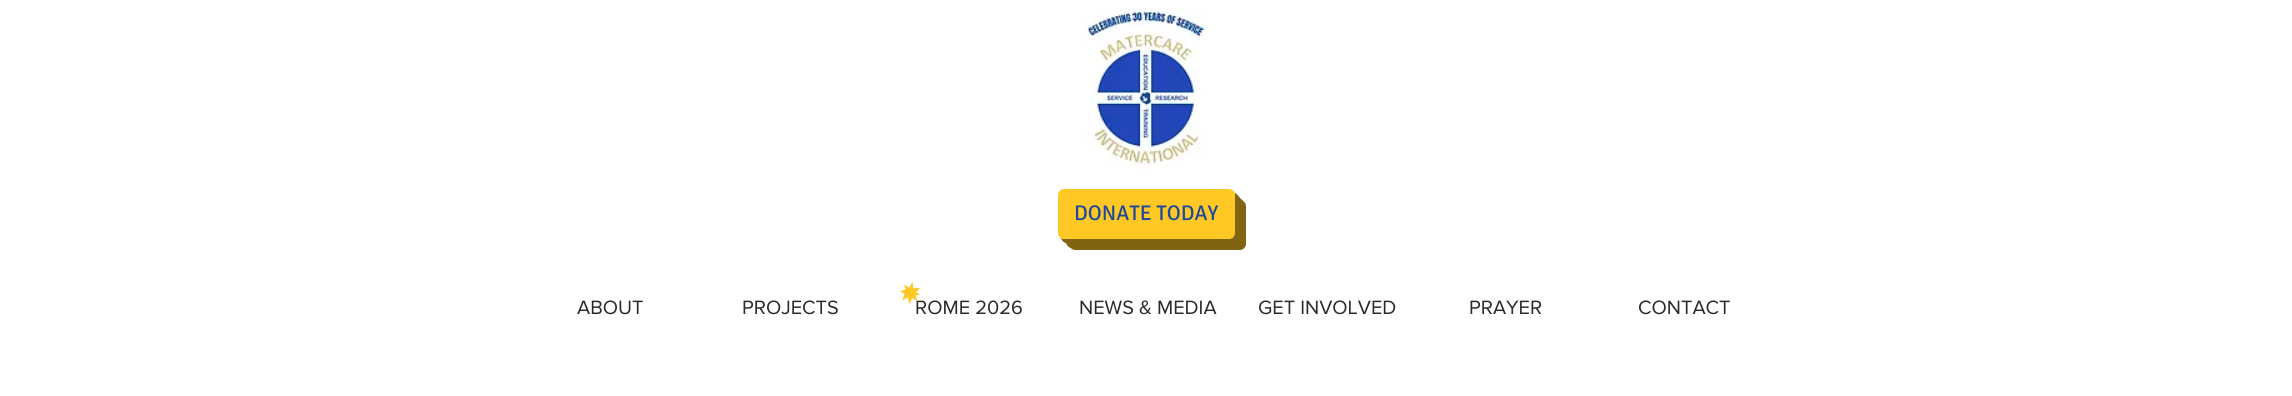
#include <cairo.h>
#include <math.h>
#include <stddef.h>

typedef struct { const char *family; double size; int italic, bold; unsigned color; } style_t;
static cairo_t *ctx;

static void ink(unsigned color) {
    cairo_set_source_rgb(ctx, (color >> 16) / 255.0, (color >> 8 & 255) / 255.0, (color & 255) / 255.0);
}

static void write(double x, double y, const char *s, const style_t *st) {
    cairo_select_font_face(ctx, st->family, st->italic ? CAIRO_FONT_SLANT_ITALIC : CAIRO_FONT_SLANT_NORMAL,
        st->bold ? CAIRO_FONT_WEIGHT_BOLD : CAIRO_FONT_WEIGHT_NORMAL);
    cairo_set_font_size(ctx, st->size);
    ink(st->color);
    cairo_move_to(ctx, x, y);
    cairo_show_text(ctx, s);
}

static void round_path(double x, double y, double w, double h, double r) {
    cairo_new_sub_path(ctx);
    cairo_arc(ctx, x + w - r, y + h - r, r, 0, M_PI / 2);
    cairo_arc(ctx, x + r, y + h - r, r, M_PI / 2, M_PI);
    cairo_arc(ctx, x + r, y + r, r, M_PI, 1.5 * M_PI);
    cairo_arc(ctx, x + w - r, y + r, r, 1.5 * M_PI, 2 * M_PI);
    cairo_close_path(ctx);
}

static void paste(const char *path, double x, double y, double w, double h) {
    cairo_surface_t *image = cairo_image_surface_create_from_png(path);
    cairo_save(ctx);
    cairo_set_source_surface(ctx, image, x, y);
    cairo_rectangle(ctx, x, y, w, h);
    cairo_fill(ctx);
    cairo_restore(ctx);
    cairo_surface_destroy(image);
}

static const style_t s1 = {"Signika", 21.25, 0, 0, 0x1b4a9d};
static const style_t s2 = {"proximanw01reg", 20, 0, 0, 0x2a2a2a};

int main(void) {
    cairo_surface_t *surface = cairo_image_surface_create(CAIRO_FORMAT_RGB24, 2292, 396);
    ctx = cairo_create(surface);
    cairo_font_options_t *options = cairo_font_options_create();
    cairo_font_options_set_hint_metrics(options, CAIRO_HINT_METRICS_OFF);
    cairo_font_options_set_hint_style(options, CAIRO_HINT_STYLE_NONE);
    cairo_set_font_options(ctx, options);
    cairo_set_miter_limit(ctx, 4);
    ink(0xffffff);
    cairo_paint(ctx);
    paste("pic1.png", 1080, 10, 130, 160);
    ink(0x806412);
    cairo_new_path(ctx);
    cairo_move_to(ctx, 1069, 239);
    cairo_line_to(ctx, 1069, 244);
    cairo_curve_to(ctx, 1069, 247, 1072, 250, 1075, 250);
    cairo_line_to(ctx, 1240, 250);
    cairo_curve_to(ctx, 1243, 250, 1246, 247, 1246, 244);
    cairo_line_to(ctx, 1246, 206);
    cairo_curve_to(ctx, 1246, 203, 1243, 200, 1240, 200);
    cairo_line_to(ctx, 1235, 200);
    cairo_line_to(ctx, 1235, 232);
    cairo_curve_to(ctx, 1235, 236, 1232, 239, 1229, 239);
    cairo_close_path(ctx);
    cairo_fill(ctx);
    cairo_new_path(ctx);
    cairo_move_to(ctx, 1066, 239);
    cairo_line_to(ctx, 1066, 242);
    cairo_curve_to(ctx, 1066, 245, 1069, 248, 1072, 248);
    cairo_line_to(ctx, 1238, 248);
    cairo_curve_to(ctx, 1241, 248, 1244, 245, 1244, 242);
    cairo_line_to(ctx, 1244, 204);
    cairo_curve_to(ctx, 1244, 201, 1241, 198, 1238, 198);
    cairo_line_to(ctx, 1235, 198);
    cairo_line_to(ctx, 1235, 232);
    cairo_curve_to(ctx, 1235, 236, 1232, 239, 1229, 239);
    cairo_close_path(ctx);
    cairo_fill(ctx);
    cairo_new_path(ctx);
    cairo_move_to(ctx, 1064, 239);
    cairo_curve_to(ctx, 1064, 242, 1067, 245, 1070, 245);
    cairo_line_to(ctx, 1235, 245);
    cairo_curve_to(ctx, 1238, 245, 1241, 242, 1241, 239);
    cairo_line_to(ctx, 1241, 201);
    cairo_curve_to(ctx, 1241, 198, 1238, 195, 1235, 195);
    cairo_line_to(ctx, 1235, 232);
    cairo_curve_to(ctx, 1235, 236, 1232, 239, 1229, 239);
    cairo_close_path(ctx);
    cairo_fill(ctx);
    cairo_new_path(ctx);
    cairo_move_to(ctx, 1061, 238);
    cairo_curve_to(ctx, 1062, 241, 1064, 243, 1067, 243);
    cairo_line_to(ctx, 1233, 243);
    cairo_curve_to(ctx, 1236, 243, 1239, 240, 1239, 237);
    cairo_line_to(ctx, 1239, 199);
    cairo_curve_to(ctx, 1239, 196, 1237, 194, 1235, 193);
    cairo_line_to(ctx, 1235, 234);
    cairo_curve_to(ctx, 1233, 244, 1210, 239, 1201, 239);
    cairo_line_to(ctx, 1064, 239);
    cairo_close_path(ctx);
    cairo_fill(ctx);
    cairo_new_path(ctx);
    cairo_move_to(ctx, 1060, 238);
    cairo_curve_to(ctx, 1061, 239, 1063, 240, 1065, 240);
    cairo_line_to(ctx, 1230, 240);
    cairo_curve_to(ctx, 1233, 240, 1236, 237, 1236, 234);
    cairo_line_to(ctx, 1236, 196);
    cairo_curve_to(ctx, 1236, 194, 1235, 193, 1234, 191);
    cairo_curve_to(ctx, 1235, 192, 1235, 194, 1235, 195);
    cairo_line_to(ctx, 1235, 232);
    cairo_curve_to(ctx, 1235, 236, 1232, 239, 1229, 239);
    cairo_line_to(ctx, 1064, 239);
    cairo_curve_to(ctx, 1062, 239, 1061, 238, 1060, 238);
    cairo_close_path(ctx);
    cairo_fill(ctx);
    ink(0xffc824);
    round_path(1058, 189, 177, 50, 6);
    cairo_fill(ctx);
    write(1074, 220, "DONATE TODAY", &s1);
    write(915, 314, "ROME 2026", &s2);
    paste("pic2.png", 900, 282, 20, 22);
    write(577, 314, "ABOUT", &s2);
    write(742, 314, "PROJECTS", &s2);
    write(1079, 314, "NEWS & MEDIA", &s2);
    write(1258, 314, "GET INVOLVED", &s2);
    write(1469, 314, "PRAYER", &s2);
    write(1638, 314, "CONTACT", &s2);
    cairo_surface_write_to_png(surface, "screenshot.png");
    cairo_font_options_destroy(options);
    cairo_destroy(ctx);
    cairo_surface_destroy(surface);
    return 0;
}
